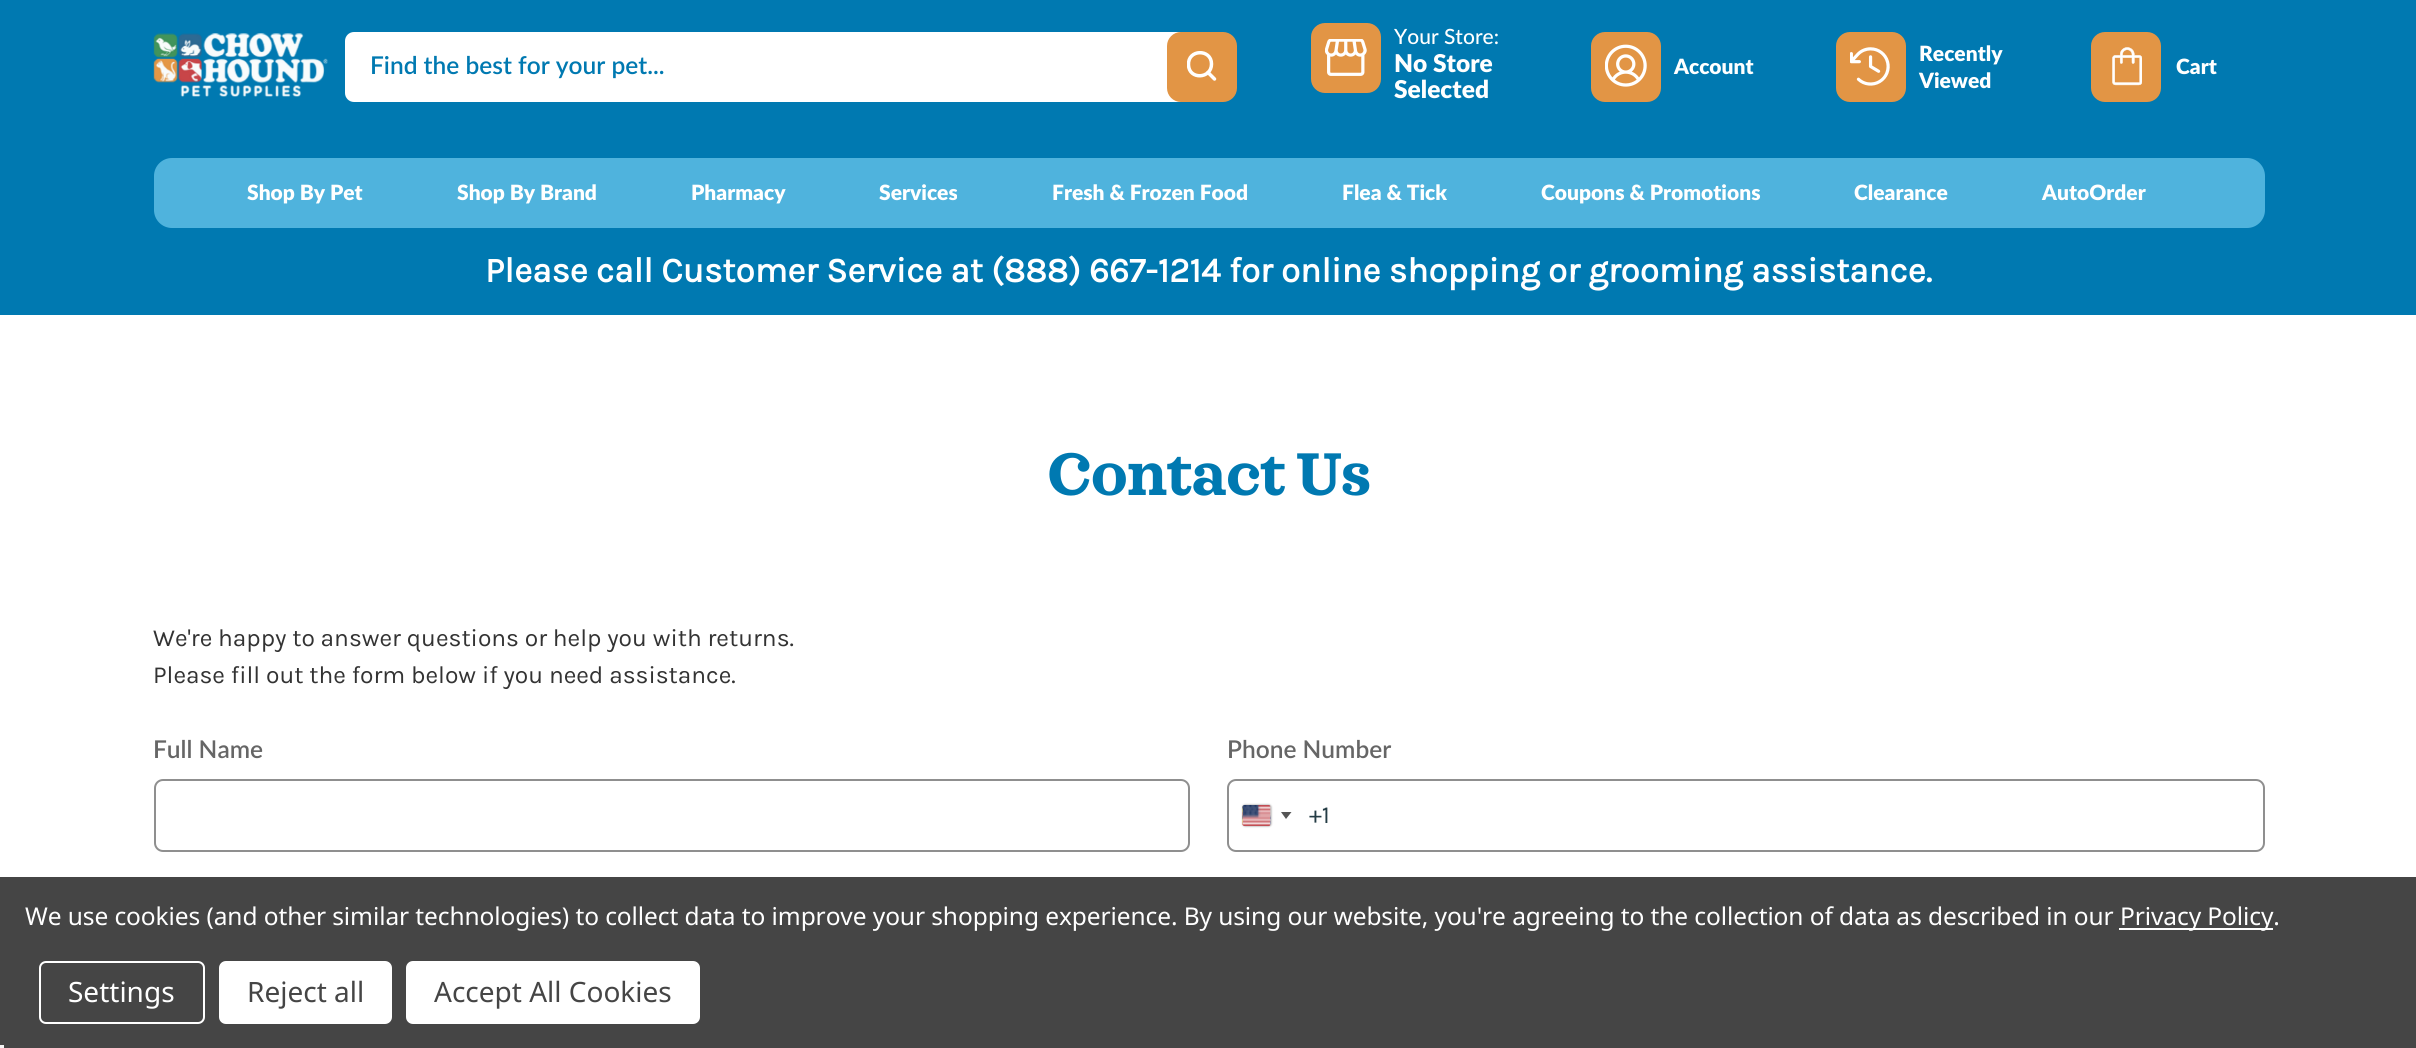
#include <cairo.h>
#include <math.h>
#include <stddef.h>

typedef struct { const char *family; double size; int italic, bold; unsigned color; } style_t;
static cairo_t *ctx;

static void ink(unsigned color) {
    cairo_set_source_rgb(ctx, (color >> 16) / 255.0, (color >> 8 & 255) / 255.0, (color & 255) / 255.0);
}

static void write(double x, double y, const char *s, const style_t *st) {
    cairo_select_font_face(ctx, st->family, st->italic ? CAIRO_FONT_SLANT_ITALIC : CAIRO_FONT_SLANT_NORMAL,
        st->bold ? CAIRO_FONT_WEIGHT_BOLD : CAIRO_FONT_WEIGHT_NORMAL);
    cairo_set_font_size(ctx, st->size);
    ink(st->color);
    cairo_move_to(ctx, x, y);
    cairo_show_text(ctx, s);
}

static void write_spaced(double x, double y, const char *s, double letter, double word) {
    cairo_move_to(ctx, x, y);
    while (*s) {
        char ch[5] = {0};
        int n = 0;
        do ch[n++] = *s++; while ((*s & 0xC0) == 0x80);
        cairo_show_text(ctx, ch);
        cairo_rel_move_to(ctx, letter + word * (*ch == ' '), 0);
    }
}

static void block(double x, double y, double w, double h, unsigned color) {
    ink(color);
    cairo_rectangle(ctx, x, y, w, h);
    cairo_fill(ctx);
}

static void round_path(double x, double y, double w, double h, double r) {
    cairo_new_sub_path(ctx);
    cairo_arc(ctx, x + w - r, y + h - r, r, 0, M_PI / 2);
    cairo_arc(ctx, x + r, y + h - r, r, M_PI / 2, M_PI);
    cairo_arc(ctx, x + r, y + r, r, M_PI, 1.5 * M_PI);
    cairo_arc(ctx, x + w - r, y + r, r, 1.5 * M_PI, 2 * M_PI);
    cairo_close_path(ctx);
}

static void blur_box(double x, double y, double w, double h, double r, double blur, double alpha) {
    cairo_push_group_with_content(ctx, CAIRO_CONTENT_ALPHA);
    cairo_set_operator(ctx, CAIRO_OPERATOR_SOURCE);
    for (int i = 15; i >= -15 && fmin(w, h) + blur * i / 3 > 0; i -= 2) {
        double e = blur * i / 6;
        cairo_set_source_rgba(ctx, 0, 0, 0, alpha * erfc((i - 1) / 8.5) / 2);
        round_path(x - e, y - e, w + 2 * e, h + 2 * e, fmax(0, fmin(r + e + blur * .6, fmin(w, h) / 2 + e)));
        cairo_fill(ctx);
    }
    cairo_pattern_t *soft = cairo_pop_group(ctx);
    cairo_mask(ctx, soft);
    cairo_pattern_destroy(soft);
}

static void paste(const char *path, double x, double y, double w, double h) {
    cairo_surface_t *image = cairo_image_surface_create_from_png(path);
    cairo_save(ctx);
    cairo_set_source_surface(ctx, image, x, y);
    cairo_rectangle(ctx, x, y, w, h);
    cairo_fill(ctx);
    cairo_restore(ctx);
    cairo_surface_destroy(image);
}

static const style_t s1 = {"Lato SemiBold", 24.5, 0, 0, 0x0079b1};
static const style_t s2 = {"Lato Medium", 21, 0, 0, 0xffffff};
static const style_t s3 = {"Lato Black", 24.5, 0, 0, 0xffffff};
static const style_t s4 = {"Lato Black", 21, 0, 0, 0xffffff};
static const style_t s5 = {"Karla", 35, 0, 1, 0xffffff};
static const style_t s6 = {"Karla", 24.5, 0, 0, 0x333333};
static const style_t s7 = {"Lato SemiBold", 24.5, 0, 0, 0x666666};
static const style_t s8 = {"Karla", 24.5, 0, 0, 0x243c45};
static const style_t s9 = {"Noto Sans", 28, 0, 0, 0xffffff};
static const style_t s10 = {"Noto Sans", 28, 0, 0, 0x454545};

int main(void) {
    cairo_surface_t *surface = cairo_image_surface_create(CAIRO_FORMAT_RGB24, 2416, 1048);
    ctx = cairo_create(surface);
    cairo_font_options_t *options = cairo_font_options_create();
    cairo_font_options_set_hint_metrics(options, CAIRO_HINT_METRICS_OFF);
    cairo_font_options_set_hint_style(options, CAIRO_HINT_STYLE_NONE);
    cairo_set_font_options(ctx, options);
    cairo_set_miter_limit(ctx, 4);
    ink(0xffffff);
    cairo_paint(ctx);
    block(0, 0, 2416, 315, 0x0079b1);
    paste("pic1.png", 153, 33, 175, 64);
    ink(0xffffff);
    round_path(345, 32, 843, 70, 9);
    cairo_fill(ctx);
    write(370, 74, "Find the best for your pet...", &s1);
    ink(0xe29545);
    round_path(1167, 32, 70, 70, 14);
    cairo_fill(ctx);
    cairo_save(ctx);
    cairo_rectangle(ctx, 1187, 51, 29, 31);
    cairo_clip(ctx);
    cairo_new_path(ctx);
    cairo_move_to(ctx, 1211.5, 64);
    cairo_curve_to(ctx, 1211.5, 79, 1189, 80, 1188.5, 65);
    cairo_curve_to(ctx, 1187.5, 49, 1211.5, 48.5, 1211.5, 64);
    cairo_close_path(ctx);
    ink(0xffffff);
    cairo_set_line_width(ctx, 3.5);
    cairo_set_line_cap(ctx, CAIRO_LINE_CAP_ROUND);
    cairo_set_line_join(ctx, CAIRO_LINE_JOIN_ROUND);
    cairo_stroke(ctx);
    cairo_restore(ctx);
    cairo_new_path(ctx);
    cairo_move_to(ctx, 1214.5, 79);
    cairo_line_to(ctx, 1208, 72.5);
    ink(0xffffff);
    cairo_set_line_width(ctx, 3.5);
    cairo_set_line_cap(ctx, CAIRO_LINE_CAP_ROUND);
    cairo_set_line_join(ctx, CAIRO_LINE_JOIN_ROUND);
    cairo_stroke(ctx);
    ink(0xe29545);
    round_path(1311, 23, 70, 70, 14);
    cairo_fill(ctx);
    paste("pic2.png", 1325, 39, 42, 37);
    write(1394, 44, "Your Store:", &s2);
    write(1394, 72, "No Store", &s3);
    write(1394, 98, "Selected", &s3);
    ink(0xe29545);
    round_path(1591, 32, 70, 70, 14);
    cairo_fill(ctx);
    paste("pic3.png", 1605, 44, 42, 43);
    write(1674, 74, "Account", &s4);
    ink(0xe29545);
    round_path(1836, 32, 70, 70, 14);
    cairo_fill(ctx);
    paste("pic4.png", 1850, 47, 40, 39);
    write(1919, 61, "Recently", &s4);
    write(1919, 88, "Viewed", &s4);
    ink(0xe29545);
    round_path(2091, 32, 70, 70, 14);
    cairo_fill(ctx);
    paste("pic5.png", 2112, 47, 30, 39);
    write(2176, 74, "Cart", &s4);
    ink(0x4fb3dd);
    round_path(154, 158, 2111, 70, 18);
    cairo_fill(ctx);
    write(247, 200, "Shop By Pet", &s4);
    write(457, 200, "Shop By Brand", &s4);
    write(691, 200, "Pharmacy", &s4);
    write(879, 200, "Services", &s4);
    write(1052, 200, "Fresh & Frozen Food", &s4);
    write(1342, 200, "Flea & Tick", &s4);
    write(1541, 200, "Coupons & Promotions", &s4);
    write(1854, 200, "Clearance", &s4);
    write(2042, 200, "AutoOrder", &s4);
    write(485, 282, "Please call Customer Service at (888) 667-1214 for online shopping or grooming assistance.", &s5);
    cairo_select_font_face(ctx, "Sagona", CAIRO_FONT_SLANT_NORMAL, CAIRO_FONT_WEIGHT_BOLD);
    cairo_set_font_size(ctx, 61.25);
    ink(0x0079b1);
    write_spaced(1047, 495, "Contact Us", -0.6, 0);
    write(153, 646, "We're happy to answer questions or help you with returns.", &s6);
    write(153, 683, "Please fill out the form below if you need assistance.", &s6);
    write(153, 758, "Full Name", &s7);
    round_path(155, 780, 1034, 71, 8);
    ink(0x8f8f8f);
    cairo_set_line_width(ctx, 2);
    cairo_set_line_cap(ctx, CAIRO_LINE_CAP_BUTT);
    cairo_set_line_join(ctx, CAIRO_LINE_JOIN_MITER);
    cairo_stroke(ctx);
    write(1227, 758, "Phone Number", &s7);
    round_path(1228, 780, 1036, 71, 8);
    ink(0x8f8f8f);
    cairo_stroke(ctx);
    ink(0x888888);
    blur_box(1243, 805, 28, 21, 2, 1, 1);
    paste("pic6.png", 1242, 805, 29, 21);
    ink(0x555555);
    cairo_new_path(ctx);
    cairo_move_to(ctx, 1281, 812);
    cairo_line_to(ctx, 1291.5, 812);
    cairo_line_to(ctx, 1286, 819);
    cairo_close_path(ctx);
    cairo_fill(ctx);
    write(1309, 823, "+1", &s8);
    block(0, 877, 2416, 171, 0x454545);
    cairo_select_font_face(ctx, "Noto Sans", CAIRO_FONT_SLANT_NORMAL, CAIRO_FONT_WEIGHT_NORMAL);
    ink(0xffffff);
    write_spaced(25, 925, "We use cookies (and other similar technologies) to collect data to improve your shopping experience. By using our website, you're agreeing to the collection of data as described in our", -0.09, 0);
    block(2119, 928, 154, 2, 0xffffff);
    write_spaced(2120, 925, "Privacy Policy.", -0.09, 0);
    round_path(40, 962, 164, 61, 6);
    cairo_stroke(ctx);
    write(68, 1002, "Settings", &s9);
    round_path(219, 961, 173, 63, 7);
    cairo_fill(ctx);
    write(247, 1002, "Reject all", &s10);
    ink(0xffffff);
    round_path(406, 961, 294, 63, 7);
    cairo_fill(ctx);
    write(434, 1002, "Accept All Cookies", &s10);
    block(0, 1045, 4, 3, 0xf5f5f5);
    cairo_surface_write_to_png(surface, "screenshot.png");
    cairo_font_options_destroy(options);
    cairo_destroy(ctx);
    cairo_surface_destroy(surface);
    return 0;
}
